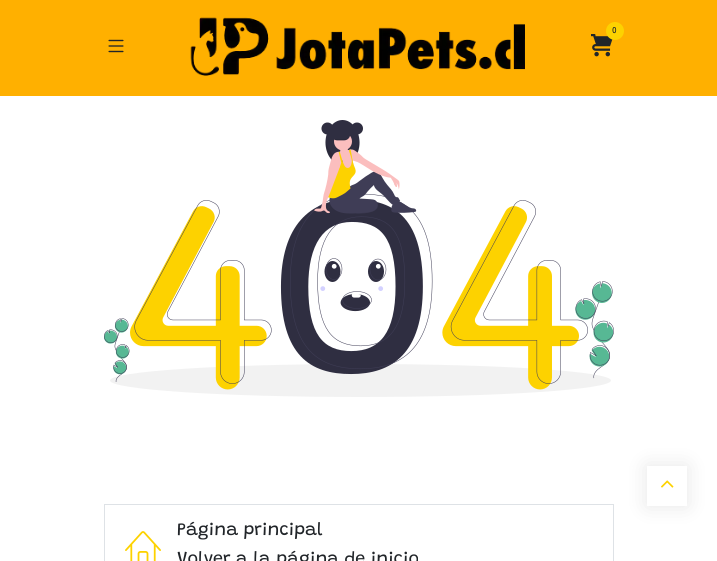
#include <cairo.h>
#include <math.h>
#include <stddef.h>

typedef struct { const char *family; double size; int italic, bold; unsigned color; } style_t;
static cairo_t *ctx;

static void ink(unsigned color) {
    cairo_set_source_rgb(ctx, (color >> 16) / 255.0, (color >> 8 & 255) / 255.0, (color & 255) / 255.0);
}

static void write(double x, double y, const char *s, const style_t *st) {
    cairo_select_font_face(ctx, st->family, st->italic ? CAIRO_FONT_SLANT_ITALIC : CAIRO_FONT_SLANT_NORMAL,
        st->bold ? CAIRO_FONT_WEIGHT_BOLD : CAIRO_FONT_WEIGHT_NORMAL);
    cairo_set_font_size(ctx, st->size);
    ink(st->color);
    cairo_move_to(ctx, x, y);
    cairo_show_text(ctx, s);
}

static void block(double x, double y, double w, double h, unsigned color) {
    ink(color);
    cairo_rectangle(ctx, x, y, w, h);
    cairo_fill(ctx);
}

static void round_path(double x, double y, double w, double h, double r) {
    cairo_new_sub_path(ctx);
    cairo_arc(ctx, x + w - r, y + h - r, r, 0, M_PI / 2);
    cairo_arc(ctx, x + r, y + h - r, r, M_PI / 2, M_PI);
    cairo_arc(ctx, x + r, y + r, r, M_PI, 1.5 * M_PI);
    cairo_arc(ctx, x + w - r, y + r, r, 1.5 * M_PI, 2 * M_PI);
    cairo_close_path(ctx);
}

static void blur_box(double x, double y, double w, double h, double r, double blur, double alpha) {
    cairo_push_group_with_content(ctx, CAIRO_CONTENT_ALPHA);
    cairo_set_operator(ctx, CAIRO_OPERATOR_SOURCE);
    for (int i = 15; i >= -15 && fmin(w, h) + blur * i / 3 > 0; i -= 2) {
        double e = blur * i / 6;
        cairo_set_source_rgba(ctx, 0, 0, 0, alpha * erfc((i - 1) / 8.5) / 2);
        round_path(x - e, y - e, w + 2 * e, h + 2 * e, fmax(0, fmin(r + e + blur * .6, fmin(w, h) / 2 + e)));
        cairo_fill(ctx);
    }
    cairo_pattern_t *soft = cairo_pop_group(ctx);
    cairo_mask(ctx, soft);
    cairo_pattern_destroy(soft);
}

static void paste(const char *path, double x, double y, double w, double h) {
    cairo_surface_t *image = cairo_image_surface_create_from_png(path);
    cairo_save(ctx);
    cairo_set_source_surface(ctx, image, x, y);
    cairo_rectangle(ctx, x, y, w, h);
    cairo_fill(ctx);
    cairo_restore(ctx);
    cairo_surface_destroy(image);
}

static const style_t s1 = {"Grandstander", 9, 0, 0, 0x212529};
static const style_t s2 = {"Grandstander", 18, 0, 0, 0x212529};

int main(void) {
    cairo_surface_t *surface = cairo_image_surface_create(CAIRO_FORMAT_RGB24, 717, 561);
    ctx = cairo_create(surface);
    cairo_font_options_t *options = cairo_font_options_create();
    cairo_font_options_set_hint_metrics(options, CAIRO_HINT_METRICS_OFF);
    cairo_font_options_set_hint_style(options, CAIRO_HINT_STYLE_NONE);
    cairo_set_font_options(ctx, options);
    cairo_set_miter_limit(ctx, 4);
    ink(0xffffff);
    cairo_paint(ctx);
    block(0, 0, 717, 96, 0xffb000);
    paste("pic1.png", 190, 17, 335, 59);
    paste("pic2.png", 591, 34, 22, 23);
    ink(0xfdd200);
    cairo_arc(ctx, 615, 31, 9, 0, 2 * M_PI);
    cairo_fill(ctx);
    write(612, 33, "0", &s1);
    paste("pic3.png", 108, 39, 16, 14);
    cairo_save(ctx);
    cairo_set_fill_rule(ctx, CAIRO_FILL_RULE_EVEN_ODD);
    cairo_new_path(ctx);
    cairo_move_to(ctx, 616, 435);
    cairo_line_to(ctx, 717, 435);
    cairo_line_to(ctx, 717, 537);
    cairo_line_to(ctx, 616, 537);
    cairo_close_path(ctx);
    cairo_move_to(ctx, 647, 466);
    cairo_line_to(ctx, 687, 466);
    cairo_line_to(ctx, 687, 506);
    cairo_line_to(ctx, 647, 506);
    cairo_close_path(ctx);
    cairo_clip(ctx);
    ink(0x000000);
    blur_box(647, 466, 40, 40, 0, 10, 0.1);
    cairo_restore(ctx);
    paste("pic4.png", 661, 480, 13, 8);
    paste("pic5.png", 104, 120, 510, 277);
    cairo_rectangle(ctx, 104.5, 504.5, 509, 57);
    ink(0xdee2e6);
    cairo_set_line_width(ctx, 1);
    cairo_stroke(ctx);
    paste("pic6.png", 125, 531, 36, 30);
    write(177, 535, "Página principal", &s2);
    write(177, 564, "Volver a la página de inicio", &s2);
    cairo_surface_write_to_png(surface, "screenshot.png");
    cairo_font_options_destroy(options);
    cairo_destroy(ctx);
    cairo_surface_destroy(surface);
    return 0;
}
